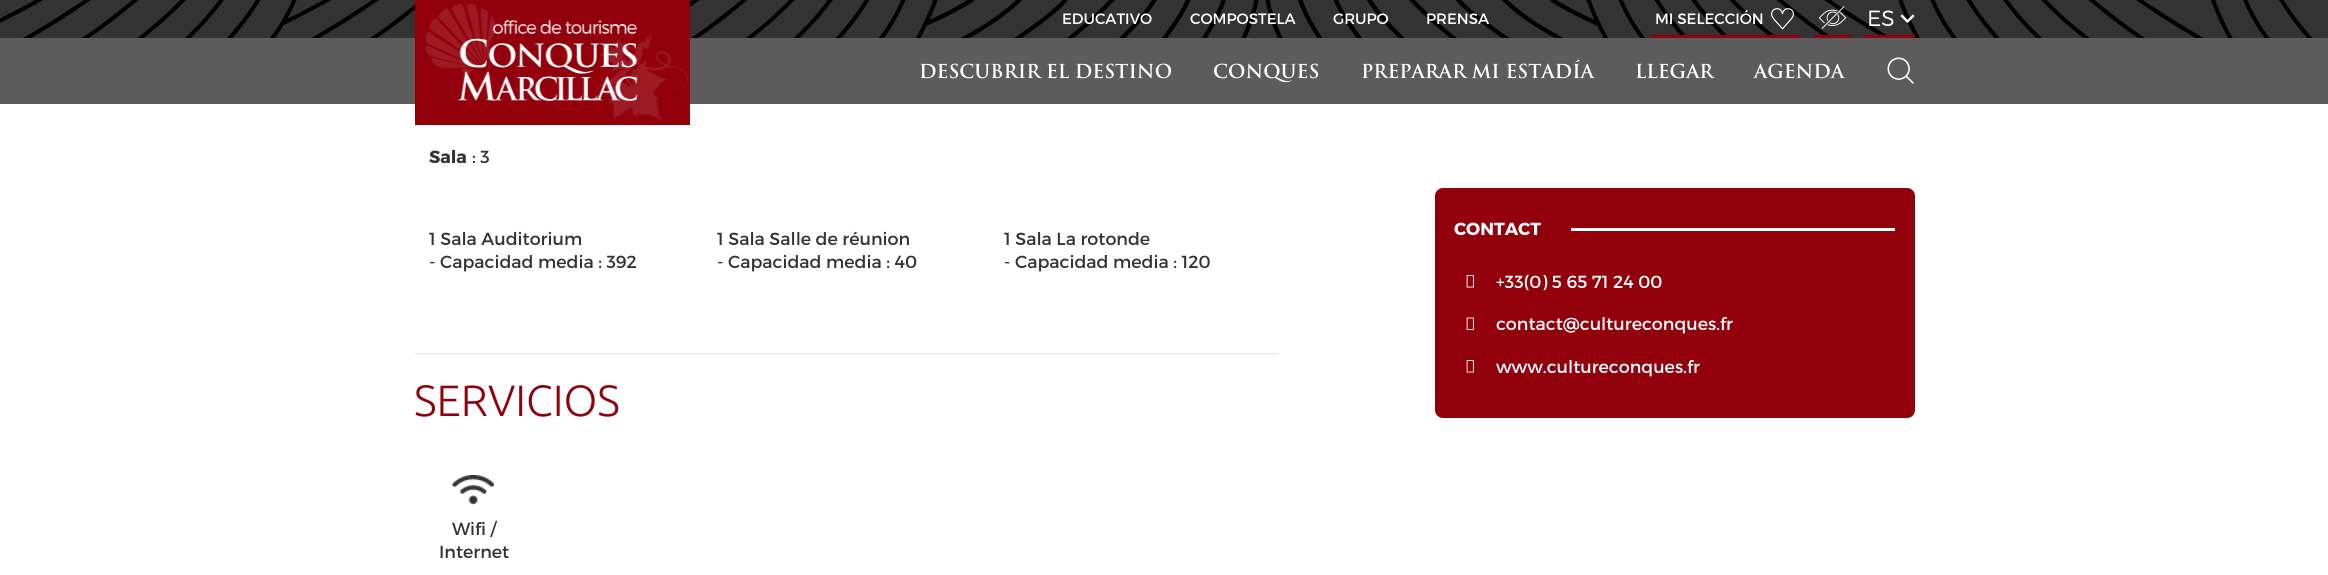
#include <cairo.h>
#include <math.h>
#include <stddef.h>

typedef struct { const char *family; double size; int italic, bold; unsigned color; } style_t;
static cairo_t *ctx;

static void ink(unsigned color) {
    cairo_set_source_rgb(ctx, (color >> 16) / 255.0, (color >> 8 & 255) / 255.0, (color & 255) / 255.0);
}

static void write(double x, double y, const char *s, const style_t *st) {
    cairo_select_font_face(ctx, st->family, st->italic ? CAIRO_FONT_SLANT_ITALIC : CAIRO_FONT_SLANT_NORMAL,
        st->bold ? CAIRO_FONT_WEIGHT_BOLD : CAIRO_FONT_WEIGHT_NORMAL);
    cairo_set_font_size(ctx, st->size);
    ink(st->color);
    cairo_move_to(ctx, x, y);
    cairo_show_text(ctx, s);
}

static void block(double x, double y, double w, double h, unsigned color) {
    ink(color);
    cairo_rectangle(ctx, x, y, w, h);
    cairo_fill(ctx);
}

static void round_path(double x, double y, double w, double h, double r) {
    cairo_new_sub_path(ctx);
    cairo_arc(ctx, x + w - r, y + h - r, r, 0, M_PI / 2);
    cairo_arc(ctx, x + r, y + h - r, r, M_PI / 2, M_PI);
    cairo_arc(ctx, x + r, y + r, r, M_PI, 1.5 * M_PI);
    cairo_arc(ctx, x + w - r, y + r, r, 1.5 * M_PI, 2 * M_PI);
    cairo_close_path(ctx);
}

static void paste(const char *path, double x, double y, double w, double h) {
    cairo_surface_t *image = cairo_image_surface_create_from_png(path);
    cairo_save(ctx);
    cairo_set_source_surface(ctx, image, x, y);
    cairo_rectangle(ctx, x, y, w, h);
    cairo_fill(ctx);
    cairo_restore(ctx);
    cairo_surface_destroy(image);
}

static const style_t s1 = {"Montserrat", 15, 0, 0, 0xffffff};
static const style_t s2 = {"Montserrat Light", 22, 0, 0, 0xffffff};
static const style_t s3 = {"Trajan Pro", 18.75, 0, 1, 0xffffff};
static const style_t s4 = {"Montserrat", 17.5, 0, 1, 0x333333};
static const style_t s5 = {"Montserrat", 17.5, 0, 0, 0x333333};
static const style_t s6 = {"Ubuntu Light", 43.75, 0, 0, 0x91000b};
static const style_t s7 = {"Montserrat", 17.5, 0, 1, 0xffffff};
static const style_t s8 = {"Montserrat", 17.5, 0, 0, 0xffffff};

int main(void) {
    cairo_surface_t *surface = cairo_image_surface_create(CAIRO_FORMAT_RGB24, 2328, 575);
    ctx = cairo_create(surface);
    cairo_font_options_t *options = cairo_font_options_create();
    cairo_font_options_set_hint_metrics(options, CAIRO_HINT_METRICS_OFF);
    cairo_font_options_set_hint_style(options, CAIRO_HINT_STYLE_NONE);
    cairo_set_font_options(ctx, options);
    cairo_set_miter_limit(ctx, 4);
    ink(0xffffff);
    cairo_paint(ctx);
    block(0, 38, 2328, 66, 0x5c5c5c);
    block(0, 0, 2328, 38, 0x333333);
    paste("pic1.png", 0, 0, 2313, 38);
    write(1062, 24, "EDUCATIVO", &s1);
    write(1190, 24, "COMPOSTELA", &s1);
    write(1333, 24, "GRUPO", &s1);
    write(1426, 24, "PRENSA", &s1);
    block(1651, 35, 150, 3, 0x91000b);
    write(1655, 24, "MI SELECCIÓN", &s1);
    paste("pic2.png", 1771, 8, 23, 22);
    paste("pic3.png", 1818, 6, 29, 23);
    block(1814, 35, 37, 3, 0x91000b);
    block(1864, 35, 51, 3, 0x91000b);
    write(1867, 26, "ES", &s2);
    paste("pic4.png", 1900, 14, 15, 9);
    block(415, 0, 275, 125, 0x91000b);
    paste("pic5.png", 425, 4, 263, 116);
    write(919, 78, "DESCUBRIR EL DESTINO", &s3);
    write(1213, 78, "CONQUES", &s3);
    write(1361, 78, "PREPARAR MI ESTADÍA", &s3);
    write(1635, 78, "LLEGAR", &s3);
    write(1754, 78, "AGENDA", &s3);
    paste("pic6.png", 1887, 57, 27, 27);
    write(429, 163, "Sala", &s4);
    write(472, 163, ": 3", &s5);
    write(429, 245, "1 Sala Auditorium", &s5);
    write(429, 268, "- Capacidad media : 392", &s5);
    write(717, 245, "1 Sala Salle de réunion", &s5);
    write(717, 268, "- Capacidad media : 40", &s5);
    write(1004, 245, "1 Sala La rotonde", &s5);
    write(1004, 268, "- Capacidad media : 120", &s5);
    block(415, 353, 863, 1, 0xdee2e6);
    write(414, 416, "SERVICIOS", &s6);
    paste("pic7.png", 452, 475, 43, 30);
    write(452, 535, "Wifi /", &s5);
    write(439, 558, "Internet", &s5);
    ink(0x91000b);
    round_path(1435, 188, 480, 230, 8);
    cairo_fill(ctx);
    write(1454, 235, "CONTACT", &s7);
    block(1571, 228, 324, 3, 0xffffff);
    paste("pic8.png", 1466, 275, 8, 13);
    write(1496, 288, "+33(0) 5 65 71 24 00", &s8);
    paste("pic9.png", 1466, 317, 8, 13);
    write(1496, 330, "contact@cultureconques.fr", &s8);
    paste("pic8.png", 1466, 360, 8, 13);
    write(1496, 373, "www.cultureconques.fr", &s8);
    cairo_surface_write_to_png(surface, "screenshot.png");
    cairo_font_options_destroy(options);
    cairo_destroy(ctx);
    cairo_surface_destroy(surface);
    return 0;
}
